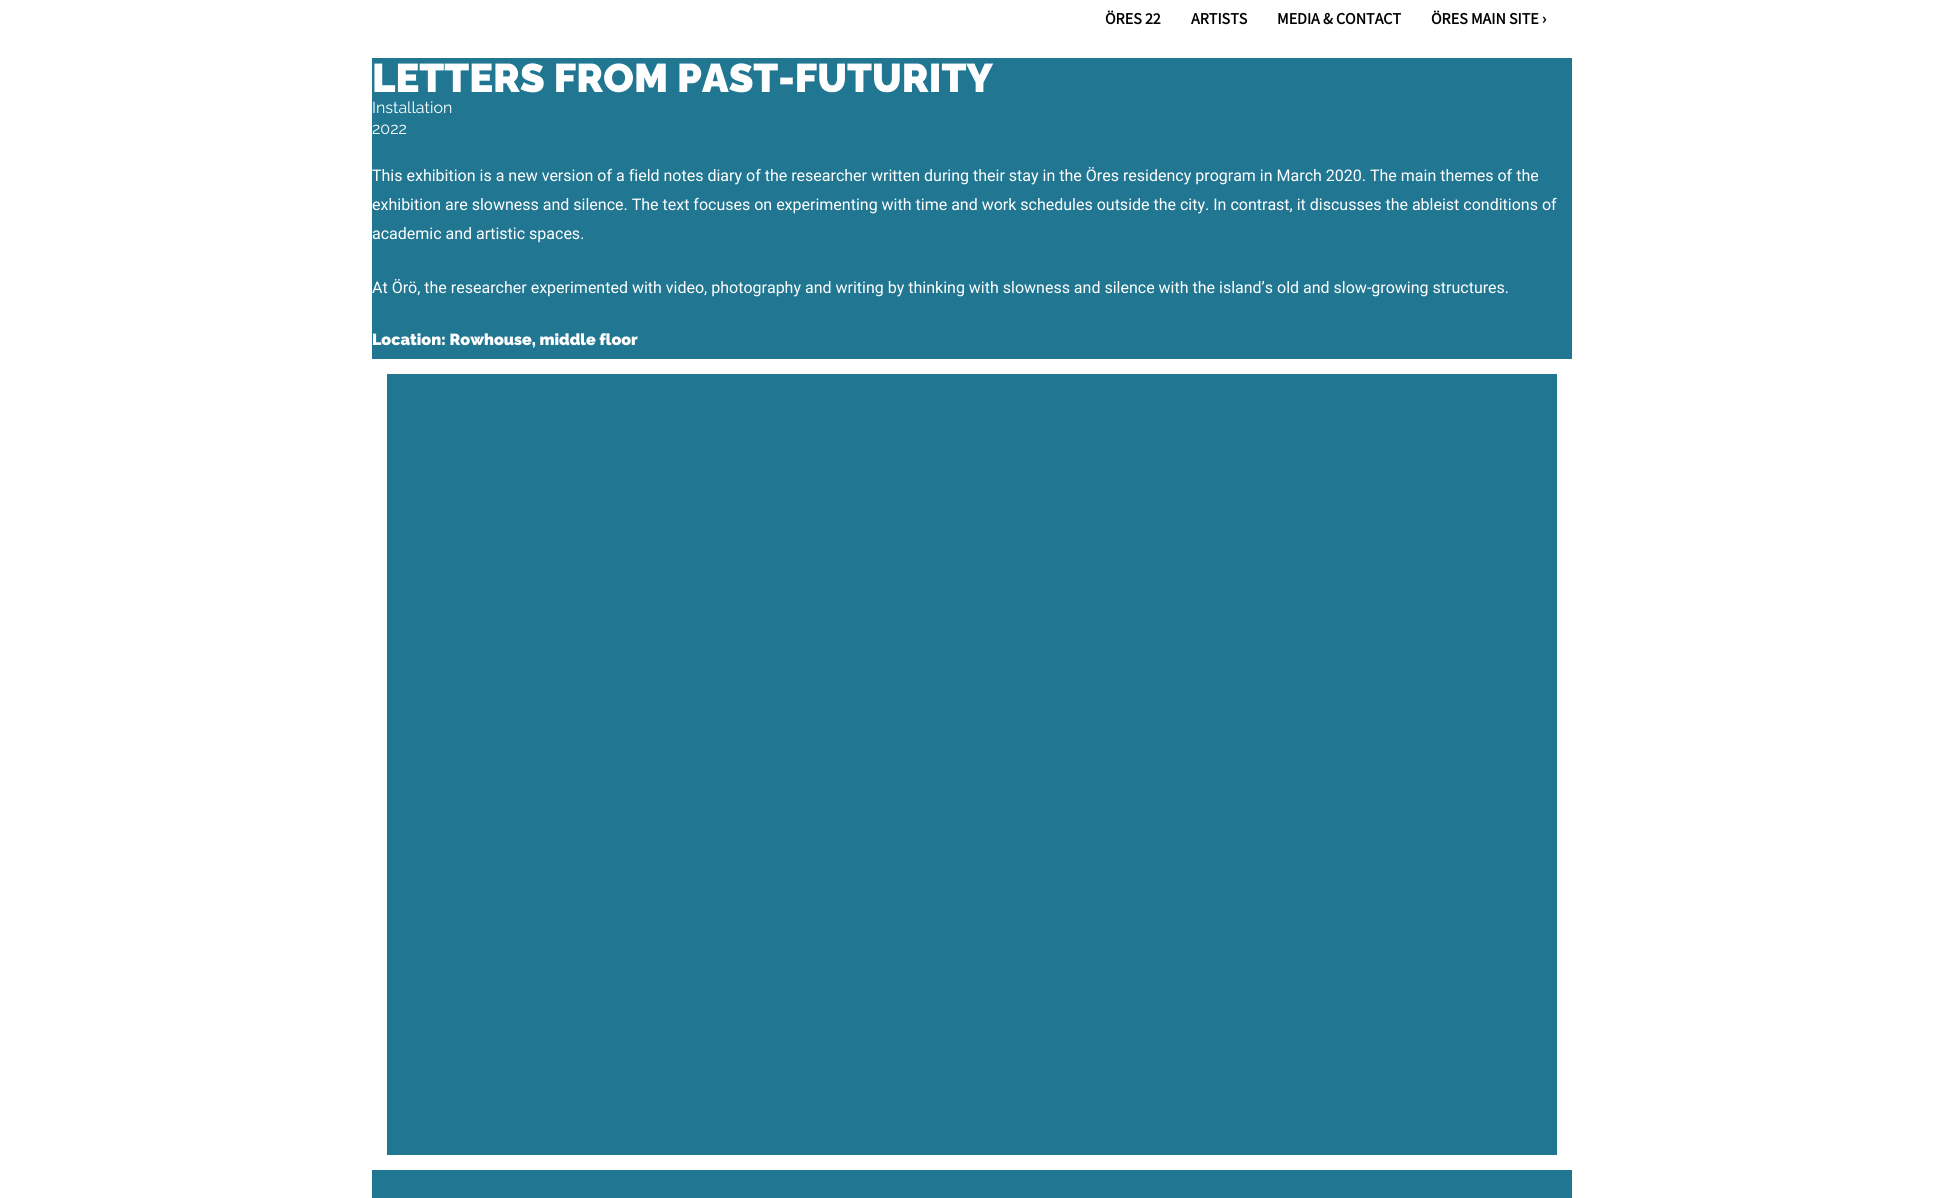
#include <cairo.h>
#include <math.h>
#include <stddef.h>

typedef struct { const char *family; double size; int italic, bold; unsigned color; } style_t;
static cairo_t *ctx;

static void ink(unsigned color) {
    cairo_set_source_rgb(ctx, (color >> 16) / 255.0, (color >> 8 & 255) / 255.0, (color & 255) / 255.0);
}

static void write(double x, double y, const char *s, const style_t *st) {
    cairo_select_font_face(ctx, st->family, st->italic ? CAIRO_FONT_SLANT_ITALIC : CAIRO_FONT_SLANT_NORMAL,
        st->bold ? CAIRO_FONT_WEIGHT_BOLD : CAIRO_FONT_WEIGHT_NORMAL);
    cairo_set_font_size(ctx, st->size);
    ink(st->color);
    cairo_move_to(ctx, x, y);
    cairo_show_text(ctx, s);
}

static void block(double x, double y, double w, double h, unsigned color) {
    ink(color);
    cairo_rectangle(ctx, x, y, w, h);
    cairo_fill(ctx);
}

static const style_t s1 = {"Source Sans Pro", 16, 0, 1, 0x000000};
static const style_t s2 = {"Raleway Black", 40, 0, 0, 0xffffff};
static const style_t s3 = {"Raleway", 16, 0, 0, 0xffffff};
static const style_t s4 = {"Roboto", 16, 0, 0, 0xffffff};
static const style_t s5 = {"Raleway Black", 16, 0, 0, 0xffffff};

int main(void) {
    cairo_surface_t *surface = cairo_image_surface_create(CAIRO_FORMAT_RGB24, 1943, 1198);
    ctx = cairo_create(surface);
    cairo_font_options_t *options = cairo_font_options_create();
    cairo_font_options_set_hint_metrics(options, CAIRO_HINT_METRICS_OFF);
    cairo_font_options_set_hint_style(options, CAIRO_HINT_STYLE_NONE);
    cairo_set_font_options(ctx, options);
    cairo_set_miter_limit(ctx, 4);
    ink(0xffffff);
    cairo_paint(ctx);
    write(1105, 24, "ÖRES 22", &s1);
    write(1191, 24, "ARTISTS", &s1);
    write(1277, 24, "MEDIA & CONTACT", &s1);
    write(1431, 24, "ÖRES MAIN SITE ›", &s1);
    block(372, 58, 1200, 1140, 0x217692);
    write(372, 92, "LETTERS FROM PAST-FUTURITY", &s2);
    write(372, 113, "Installation", &s3);
    write(372, 134, "2022", &s3);
    write(372, 181, "This exhibition is a new version of a field notes diary of the researcher written during their stay in the Öres residency program in March 2020. The main themes of the", &s4);
    write(372, 210, "exhibition are slowness and silence. The text focuses on experimenting with time and work schedules outside the city. In contrast, it discusses the ableist conditions of", &s4);
    write(372, 239, "academic and artistic spaces.", &s4);
    write(372, 293, "At Örö, the researcher experimented with video, photography and writing by thinking with slowness and silence with the island’s old and slow-growing structures.", &s4);
    write(372, 345, "Location: Rowhouse, middle floor", &s5);
    cairo_rectangle(ctx, 379.5, 366.5, 1185, 796);
    cairo_set_line_width(ctx, 15);
    cairo_stroke(ctx);
    cairo_surface_write_to_png(surface, "screenshot.png");
    cairo_font_options_destroy(options);
    cairo_destroy(ctx);
    cairo_surface_destroy(surface);
    return 0;
}
